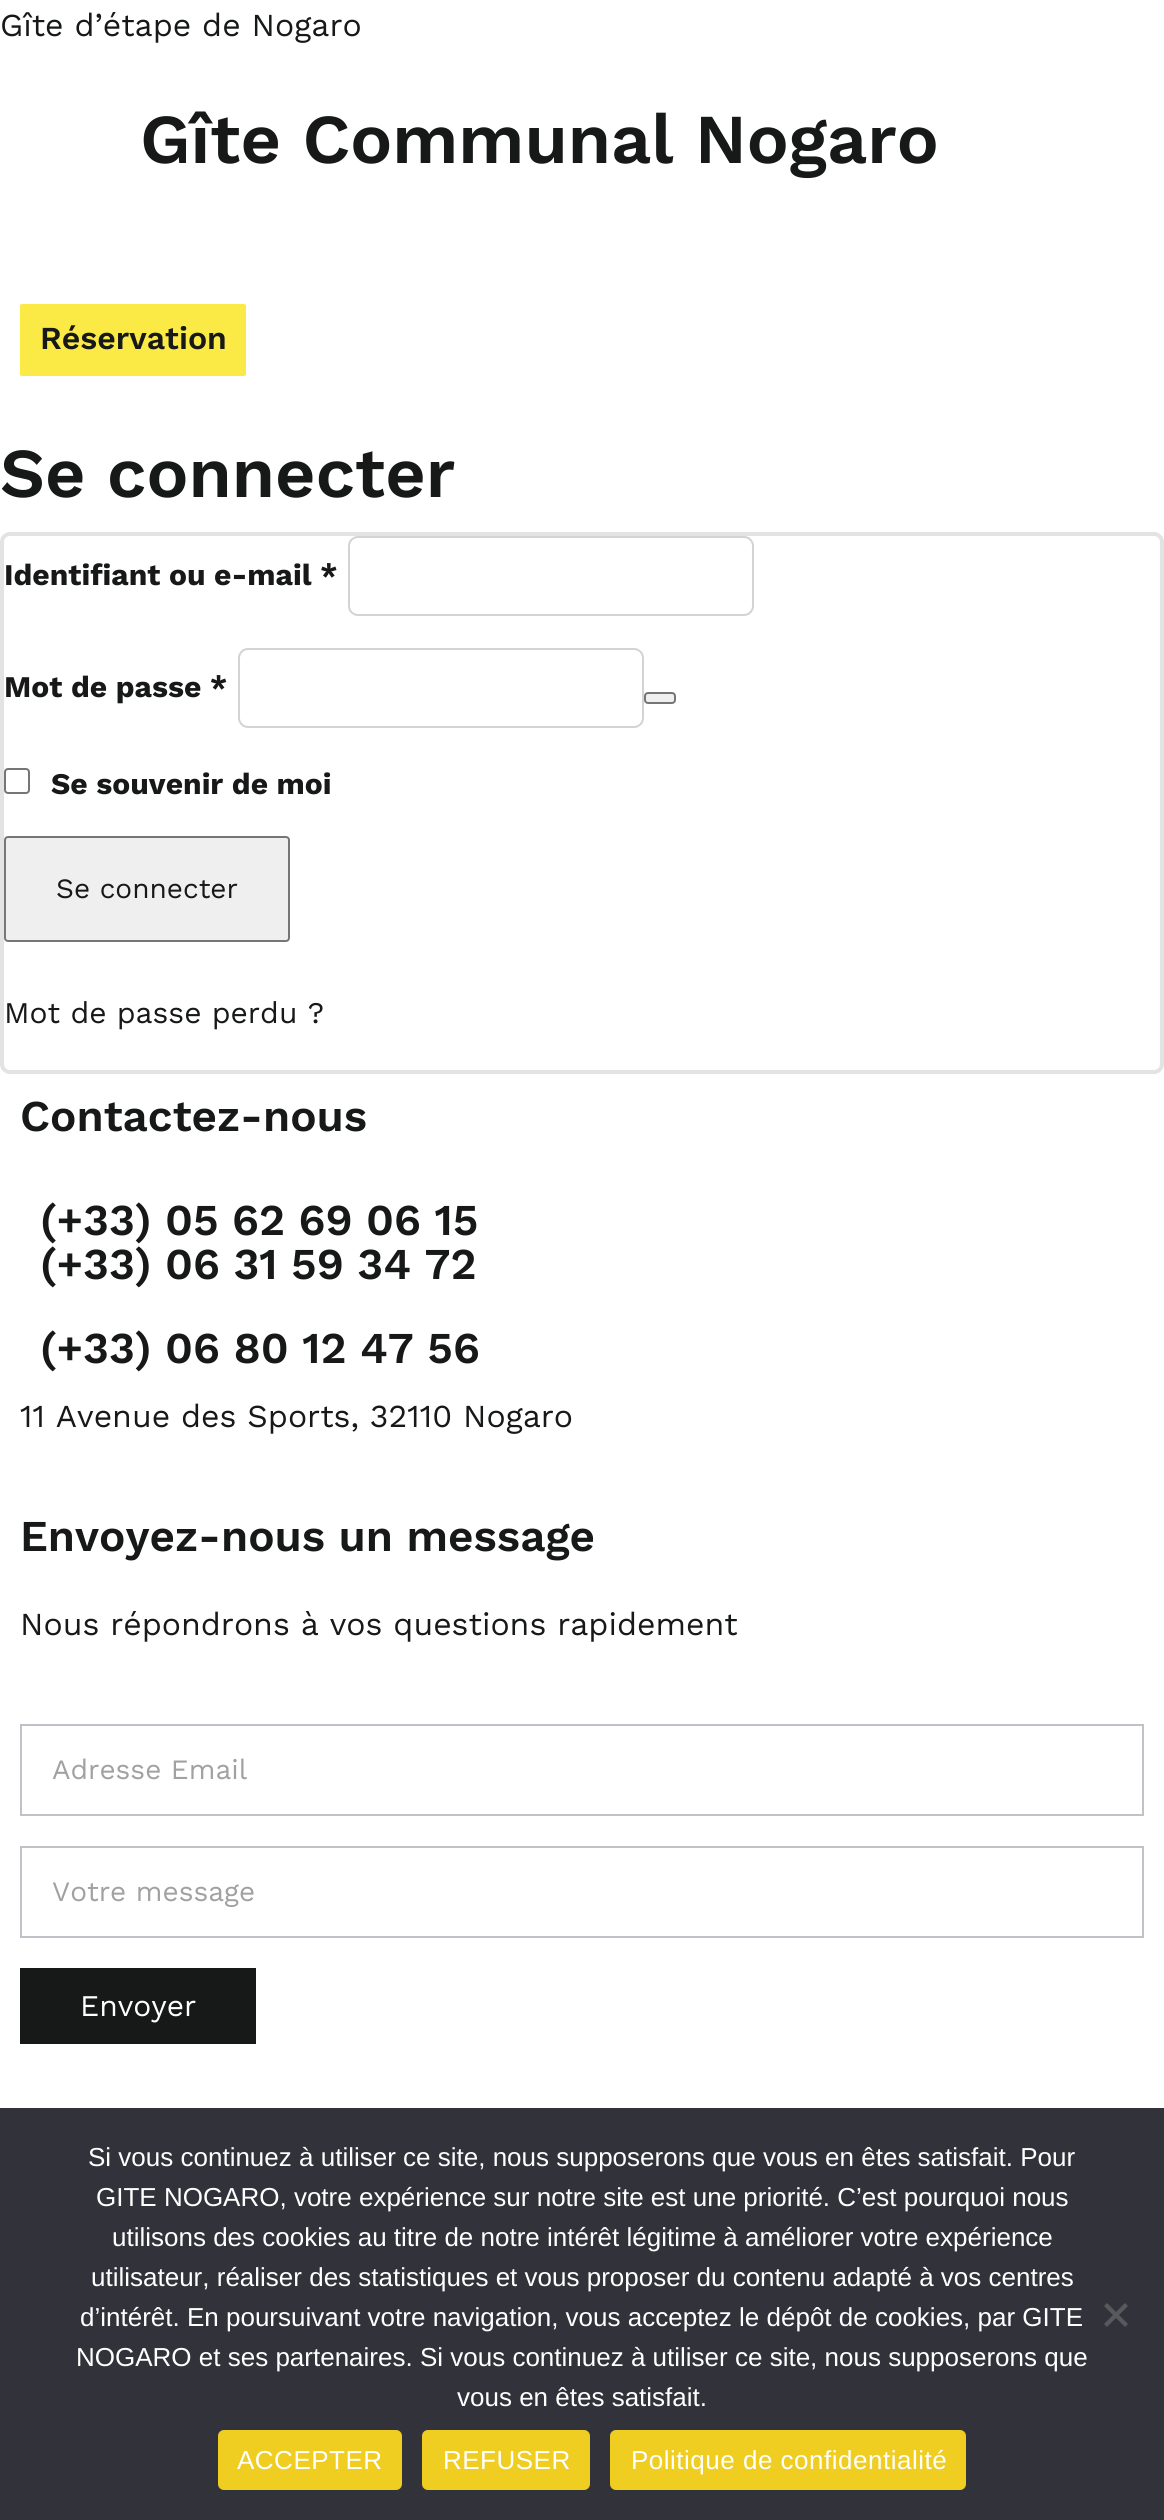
#include <cairo.h>
#include <math.h>
#include <stddef.h>

typedef struct { const char *family; double size; int italic, bold; unsigned color; } style_t;
static cairo_t *ctx;

static void ink(unsigned color) {
    cairo_set_source_rgb(ctx, (color >> 16) / 255.0, (color >> 8 & 255) / 255.0, (color & 255) / 255.0);
}

static void write(double x, double y, const char *s, const style_t *st) {
    cairo_select_font_face(ctx, st->family, st->italic ? CAIRO_FONT_SLANT_ITALIC : CAIRO_FONT_SLANT_NORMAL,
        st->bold ? CAIRO_FONT_WEIGHT_BOLD : CAIRO_FONT_WEIGHT_NORMAL);
    cairo_set_font_size(ctx, st->size);
    ink(st->color);
    cairo_move_to(ctx, x, y);
    cairo_show_text(ctx, s);
}

static void write_spaced(double x, double y, const char *s, double letter, double word) {
    cairo_move_to(ctx, x, y);
    while (*s) {
        char ch[5] = {0};
        int n = 0;
        do ch[n++] = *s++; while ((*s & 0xC0) == 0x80);
        cairo_show_text(ctx, ch);
        cairo_rel_move_to(ctx, letter + word * (*ch == ' '), 0);
    }
}

static void block(double x, double y, double w, double h, unsigned color) {
    ink(color);
    cairo_rectangle(ctx, x, y, w, h);
    cairo_fill(ctx);
}

static void round_path(double x, double y, double w, double h, double r) {
    cairo_new_sub_path(ctx);
    cairo_arc(ctx, x + w - r, y + h - r, r, 0, M_PI / 2);
    cairo_arc(ctx, x + r, y + h - r, r, M_PI / 2, M_PI);
    cairo_arc(ctx, x + r, y + r, r, M_PI, 1.5 * M_PI);
    cairo_arc(ctx, x + w - r, y + r, r, 1.5 * M_PI, 2 * M_PI);
    cairo_close_path(ctx);
}

static const style_t s1 = {"Work Sans", 32, 0, 0, 0x171818};
static const style_t s2 = {"Work Sans SemiBold", 70, 0, 0, 0x171818};
static const style_t s3 = {"Work Sans SemiBold", 32, 0, 0, 0x171818};
static const style_t s4 = {"Work Sans", 30, 0, 1, 0x171818};
static const style_t s5 = {"Work Sans", 28, 0, 0, 0x171818};
static const style_t s6 = {"Work Sans", 30, 0, 0, 0x171818};
static const style_t s7 = {"Work Sans SemiBold", 44, 0, 0, 0x171818};
static const style_t s8 = {"Work Sans", 28, 0, 0, 0xa1a1a1};
static const style_t s9 = {"Work Sans", 30, 0, 0, 0xffffff};
static const style_t s10 = {"Liberation Sans", 26, 0, 0, 0xffffff};

int main(void) {
    cairo_surface_t *surface = cairo_image_surface_create(CAIRO_FORMAT_RGB24, 1164, 2520);
    ctx = cairo_create(surface);
    cairo_font_options_t *options = cairo_font_options_create();
    cairo_font_options_set_hint_metrics(options, CAIRO_HINT_METRICS_OFF);
    cairo_font_options_set_hint_style(options, CAIRO_HINT_STYLE_NONE);
    cairo_set_font_options(ctx, options);
    cairo_set_miter_limit(ctx, 4);
    ink(0xffffff);
    cairo_paint(ctx);
    write(0, 36, "Gîte d’étape de Nogaro", &s1);
    write(140, 163, "Gîte Communal Nogaro", &s2);
    ink(0xfbe946);
    round_path(20, 304, 226, 72, 2);
    cairo_fill(ctx);
    write(40, 349, "Réservation", &s3);
    write(0, 497, "Se connecter", &s2);
    round_path(2, 534, 1160, 538, 8);
    ink(0xe3e3e3);
    cairo_set_line_width(ctx, 4);
    cairo_stroke(ctx);
    write(4, 585, "Identifiant ou e-mail *", &s4);
    round_path(349, 537, 404, 78, 9);
    ink(0xd3d3d3);
    cairo_set_line_width(ctx, 2);
    cairo_stroke(ctx);
    write(4, 697, "Mot de passe *", &s4);
    round_path(239, 649, 404, 78, 9);
    ink(0xd3d3d3);
    cairo_stroke(ctx);
    ink(0xefefef);
    round_path(645, 693, 30, 10, 3);
    cairo_fill_preserve(ctx);
    ink(0x767676);
    cairo_stroke(ctx);
    round_path(5, 769, 24, 24, 3);
    cairo_stroke(ctx);
    write(51, 794, "Se souvenir de moi", &s4);
    ink(0xefefef);
    round_path(5, 837, 284, 104, 3);
    cairo_fill_preserve(ctx);
    ink(0x767676);
    cairo_stroke(ctx);
    write(56, 898, "Se connecter", &s5);
    write(4, 1023, "Mot de passe perdu ?", &s6);
    write(20, 1131, "Contactez-nous", &s7);
    write(40, 1235, "(+33) 05 62 69 06 15", &s7);
    write(40, 1279, "(+33) 06 31 59 34 72", &s7);
    write(40, 1363, "(+33) 06 80 12 47 56", &s7);
    write(20, 1427, "11 Avenue des Sports, 32110 Nogaro", &s1);
    write(20, 1551, "Envoyez-nous un message", &s7);
    write(20, 1635, "Nous répondrons à vos questions rapidement", &s1);
    cairo_rectangle(ctx, 21, 1725, 1122, 90);
    ink(0xbfc3c8);
    cairo_stroke(ctx);
    write(52, 1779, "Adresse Email", &s8);
    cairo_rectangle(ctx, 21, 1847, 1122, 90);
    ink(0xbfc3c8);
    cairo_stroke(ctx);
    write(52, 1901, "Votre message", &s8);
    block(20, 1968, 236, 76, 0x171818);
    write(80, 2016, "Envoyer", &s9);
    block(0, 2108, 1164, 412, 0x32323a);
    write(88, 2166, "Si vous continuez à utiliser ce site, nous supposerons que vous en êtes satisfait. Pour", &s10);
    write(96, 2206, "GITE NOGARO, votre expérience sur notre site est une priorité. C’est pourquoi nous", &s10);
    write(112, 2246, "utilisons des cookies au titre de notre intérêt légitime à améliorer votre expérience", &s10);
    write(91, 2286, "utilisateur, réaliser des statistiques et vous proposer du contenu adapté à vos centres", &s10);
    write(80, 2326, "d’intérêt. En poursuivant votre navigation, vous acceptez le dépôt de cookies, par GITE", &s10);
    write(76, 2366, "NOGARO et ses partenaires. Si vous continuez à utiliser ce site, nous supposerons que", &s10);
    write(457, 2406, "vous en êtes satisfait.", &s10);
    ink(0x59595d);
    cairo_new_path(ctx);
    cairo_move_to(ctx, 1125, 2303);
    cairo_line_to(ctx, 1128, 2306);
    cairo_line_to(ctx, 1107, 2327);
    cairo_line_to(ctx, 1104, 2324);
    cairo_close_path(ctx);
    cairo_fill(ctx);
    cairo_new_path(ctx);
    cairo_move_to(ctx, 1104, 2306);
    cairo_line_to(ctx, 1107, 2303);
    cairo_line_to(ctx, 1128, 2324);
    cairo_line_to(ctx, 1125, 2327);
    cairo_close_path(ctx);
    cairo_fill(ctx);
    ink(0xefcd21);
    round_path(218, 2430, 184, 60, 6);
    cairo_fill(ctx);
    ink(0xffffff);
    write_spaced(237, 2469, "ACCEPTER", 0.5, 0);
    ink(0xefcd21);
    round_path(422, 2430, 168, 60, 6);
    cairo_fill(ctx);
    ink(0xffffff);
    write_spaced(443, 2469, "REFUSER", 0.5, 0);
    ink(0xefcd21);
    round_path(610, 2430, 356, 60, 6);
    cairo_fill(ctx);
    ink(0xffffff);
    write_spaced(631, 2469, "Politique de confidentialité", 0.5, 0);
    cairo_surface_write_to_png(surface, "screenshot.png");
    cairo_font_options_destroy(options);
    cairo_destroy(ctx);
    cairo_surface_destroy(surface);
    return 0;
}
